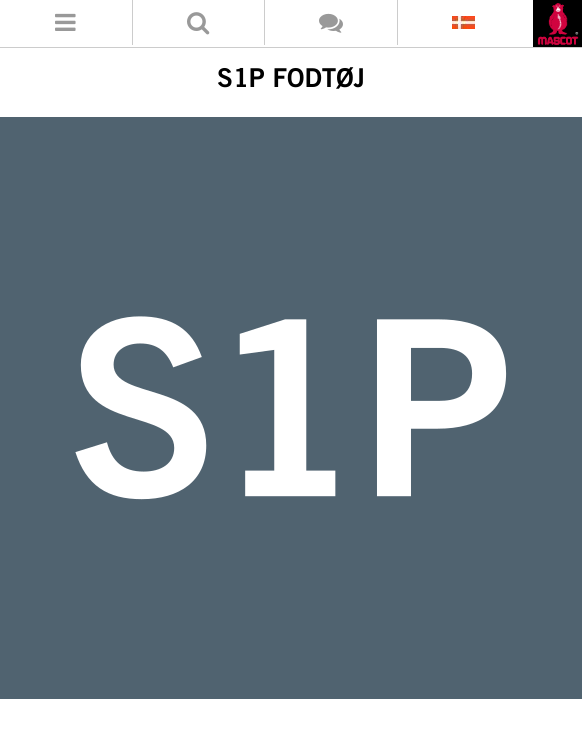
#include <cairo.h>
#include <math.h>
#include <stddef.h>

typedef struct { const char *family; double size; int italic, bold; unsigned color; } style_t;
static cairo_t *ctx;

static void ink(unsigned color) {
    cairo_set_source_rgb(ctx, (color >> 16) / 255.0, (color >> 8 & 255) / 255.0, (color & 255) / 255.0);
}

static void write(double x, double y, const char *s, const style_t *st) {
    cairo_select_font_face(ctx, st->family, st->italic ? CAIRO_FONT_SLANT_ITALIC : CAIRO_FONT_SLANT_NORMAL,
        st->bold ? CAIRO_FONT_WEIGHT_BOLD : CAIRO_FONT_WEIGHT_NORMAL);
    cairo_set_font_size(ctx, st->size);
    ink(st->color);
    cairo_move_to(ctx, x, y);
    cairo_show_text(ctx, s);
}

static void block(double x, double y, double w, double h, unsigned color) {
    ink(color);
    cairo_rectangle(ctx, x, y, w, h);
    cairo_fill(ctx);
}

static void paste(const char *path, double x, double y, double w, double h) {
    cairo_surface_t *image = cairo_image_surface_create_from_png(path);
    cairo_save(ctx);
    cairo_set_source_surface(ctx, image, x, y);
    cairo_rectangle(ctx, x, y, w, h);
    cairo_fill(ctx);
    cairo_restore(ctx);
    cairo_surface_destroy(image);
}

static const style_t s1 = {"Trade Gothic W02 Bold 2", 26, 0, 1, 0x000000};

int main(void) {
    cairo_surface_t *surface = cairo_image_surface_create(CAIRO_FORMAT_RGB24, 582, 743);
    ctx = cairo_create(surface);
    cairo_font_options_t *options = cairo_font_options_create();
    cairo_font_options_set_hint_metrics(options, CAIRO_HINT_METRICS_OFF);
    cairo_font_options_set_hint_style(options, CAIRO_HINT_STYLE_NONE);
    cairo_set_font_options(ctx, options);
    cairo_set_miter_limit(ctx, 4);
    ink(0xffffff);
    cairo_paint(ctx);
    block(0, 47, 582, 1, 0xcccccc);
    block(132, 0, 1, 45, 0xcccccc);
    paste("pic1.png", 55, 13, 21, 18);
    block(264, 0, 1, 45, 0xcccccc);
    paste("pic2.png", 187, 12, 23, 23);
    block(397, 0, 1, 45, 0xcccccc);
    paste("pic3.png", 319, 13, 24, 20);
    paste("pic4.png", 452, 16, 23, 13);
    paste("pic5.png", 533, 0, 49, 47);
    write(217, 87, "S1P FODTØJ", &s1);
    paste("pic6.png", 0, 117, 582, 582);
    cairo_surface_write_to_png(surface, "screenshot.png");
    cairo_font_options_destroy(options);
    cairo_destroy(ctx);
    cairo_surface_destroy(surface);
    return 0;
}
